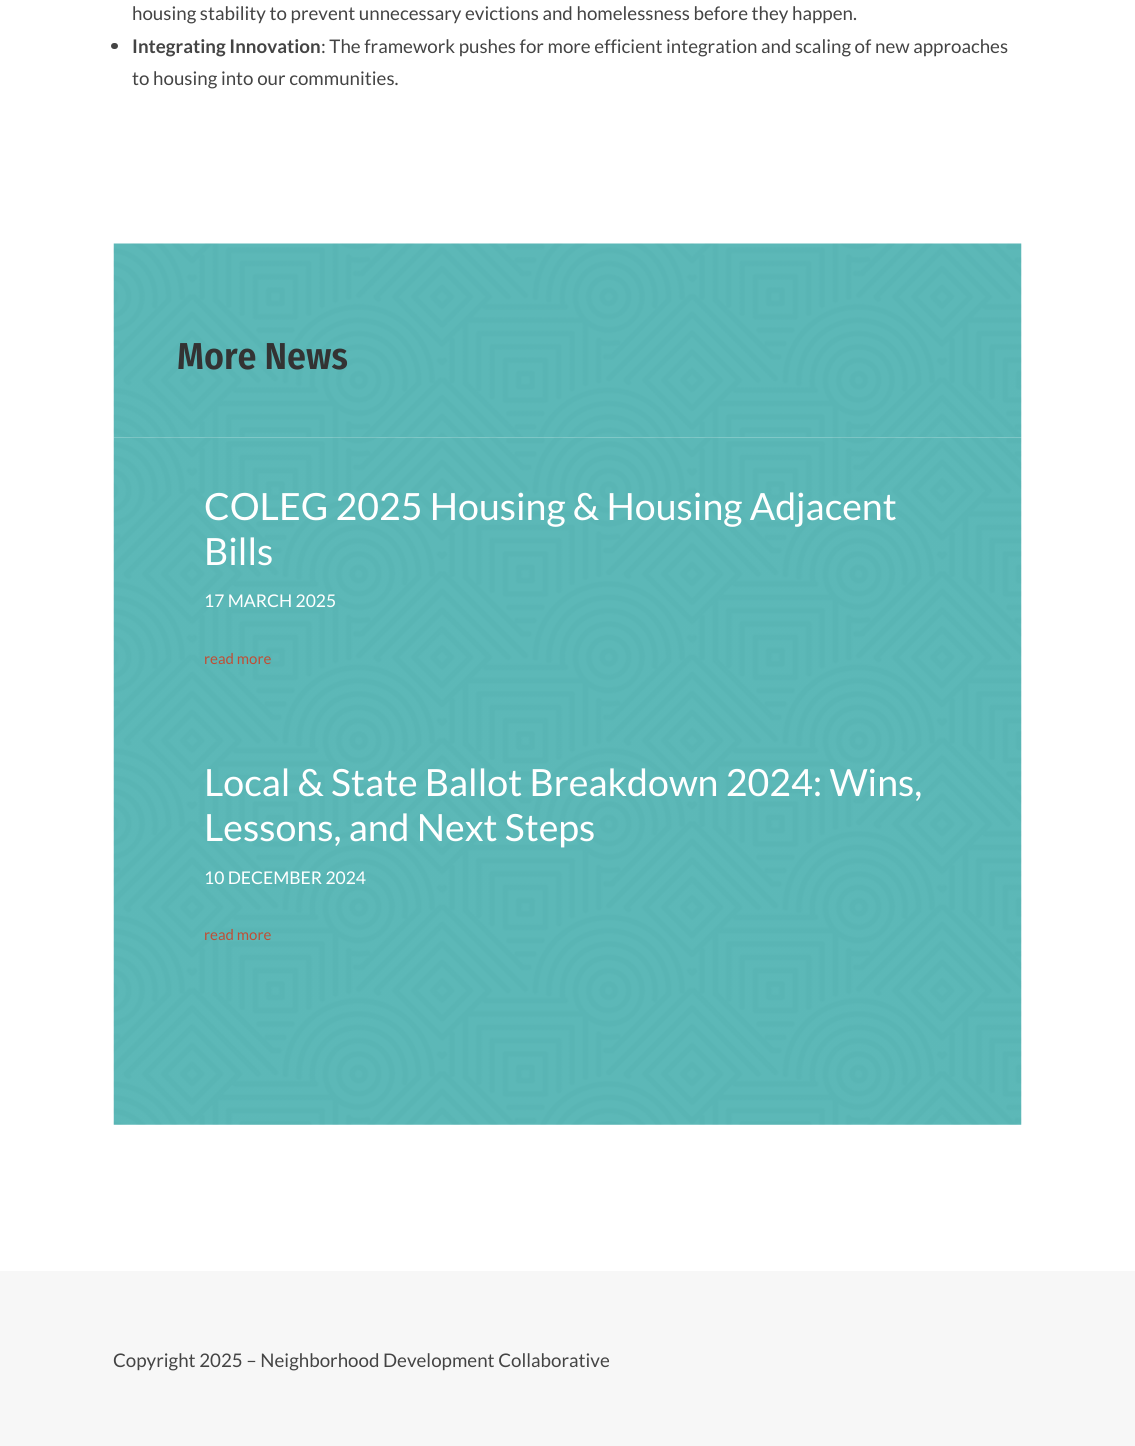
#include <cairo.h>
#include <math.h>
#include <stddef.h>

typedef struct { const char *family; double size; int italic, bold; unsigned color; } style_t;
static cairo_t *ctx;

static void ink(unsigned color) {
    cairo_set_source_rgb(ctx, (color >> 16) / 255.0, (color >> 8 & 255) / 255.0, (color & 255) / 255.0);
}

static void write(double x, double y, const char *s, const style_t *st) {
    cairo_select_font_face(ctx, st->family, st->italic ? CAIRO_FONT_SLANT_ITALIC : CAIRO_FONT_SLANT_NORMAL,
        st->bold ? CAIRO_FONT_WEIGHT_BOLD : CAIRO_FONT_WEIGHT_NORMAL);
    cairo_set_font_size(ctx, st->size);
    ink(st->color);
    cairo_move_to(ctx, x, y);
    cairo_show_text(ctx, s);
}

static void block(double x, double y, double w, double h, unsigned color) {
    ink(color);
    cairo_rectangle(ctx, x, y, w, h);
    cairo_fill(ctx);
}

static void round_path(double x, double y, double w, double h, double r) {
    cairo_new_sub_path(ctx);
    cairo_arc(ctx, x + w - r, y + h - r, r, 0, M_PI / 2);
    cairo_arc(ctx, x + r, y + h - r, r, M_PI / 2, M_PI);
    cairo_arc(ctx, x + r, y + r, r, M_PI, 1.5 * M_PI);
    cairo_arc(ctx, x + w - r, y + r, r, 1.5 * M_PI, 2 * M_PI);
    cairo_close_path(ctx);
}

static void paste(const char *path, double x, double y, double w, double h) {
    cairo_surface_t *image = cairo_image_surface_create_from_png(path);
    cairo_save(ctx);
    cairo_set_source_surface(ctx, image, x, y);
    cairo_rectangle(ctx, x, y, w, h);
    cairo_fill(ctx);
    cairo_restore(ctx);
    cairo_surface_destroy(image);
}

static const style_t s1 = {"Lato", 18.75, 0, 0, 0x444444};
static const style_t s2 = {"Lato", 18.75, 0, 1, 0x444444};
static const style_t s3 = {"Fira Sans Condensed SemiBold", 37.5, 0, 0, 0x333333};
static const style_t s4 = {"Lato", 37.5, 0, 0, 0xffffff};
static const style_t s5 = {"Lato", 17.5, 0, 0, 0xffffff};
static const style_t s6 = {"Lato", 15, 0, 0, 0xbf4e35};

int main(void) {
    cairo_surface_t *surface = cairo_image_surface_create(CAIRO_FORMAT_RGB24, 1135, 1446);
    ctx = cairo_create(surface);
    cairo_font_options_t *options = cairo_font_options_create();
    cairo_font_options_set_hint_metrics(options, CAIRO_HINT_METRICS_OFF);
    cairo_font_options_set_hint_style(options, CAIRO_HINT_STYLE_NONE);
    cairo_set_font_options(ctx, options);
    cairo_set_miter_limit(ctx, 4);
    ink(0xffffff);
    cairo_paint(ctx);
    write(132, 20, "housing stability to prevent unnecessary evictions and homelessness before they happen.", &s1);
    round_path(111, 43, 7, 6, 3);
    cairo_fill(ctx);
    write(132, 53, "Integrating Innovation", &s2);
    write(321, 53, ": The framework pushes for more efficient integration and scaling of new approaches", &s1);
    write(132, 85, "to housing into our communities.", &s1);
    paste("pic1.png", 113, 243, 909, 195);
    write(177, 369, "More News", &s3);
    paste("pic2.png", 113, 437, 909, 688);
    write(204, 520, "COLEG 2025 Housing & Housing Adjacent", &s4);
    write(204, 565, "Bills", &s4);
    write(204, 607, "17 MARCH 2025", &s5);
    write(204, 664, "read more", &s6);
    write(204, 796, "Local & State Ballot Breakdown 2024: Wins,", &s4);
    write(204, 841, "Lessons, and Next Steps", &s4);
    write(204, 884, "10 DECEMBER 2024", &s5);
    write(204, 940, "read more", &s6);
    block(0, 1271, 1135, 175, 0xf7f7f7);
    write(113, 1367, "Copyright 2025 – Neighborhood Development Collaborative", &s1);
    cairo_surface_write_to_png(surface, "screenshot.png");
    cairo_font_options_destroy(options);
    cairo_destroy(ctx);
    cairo_surface_destroy(surface);
    return 0;
}
